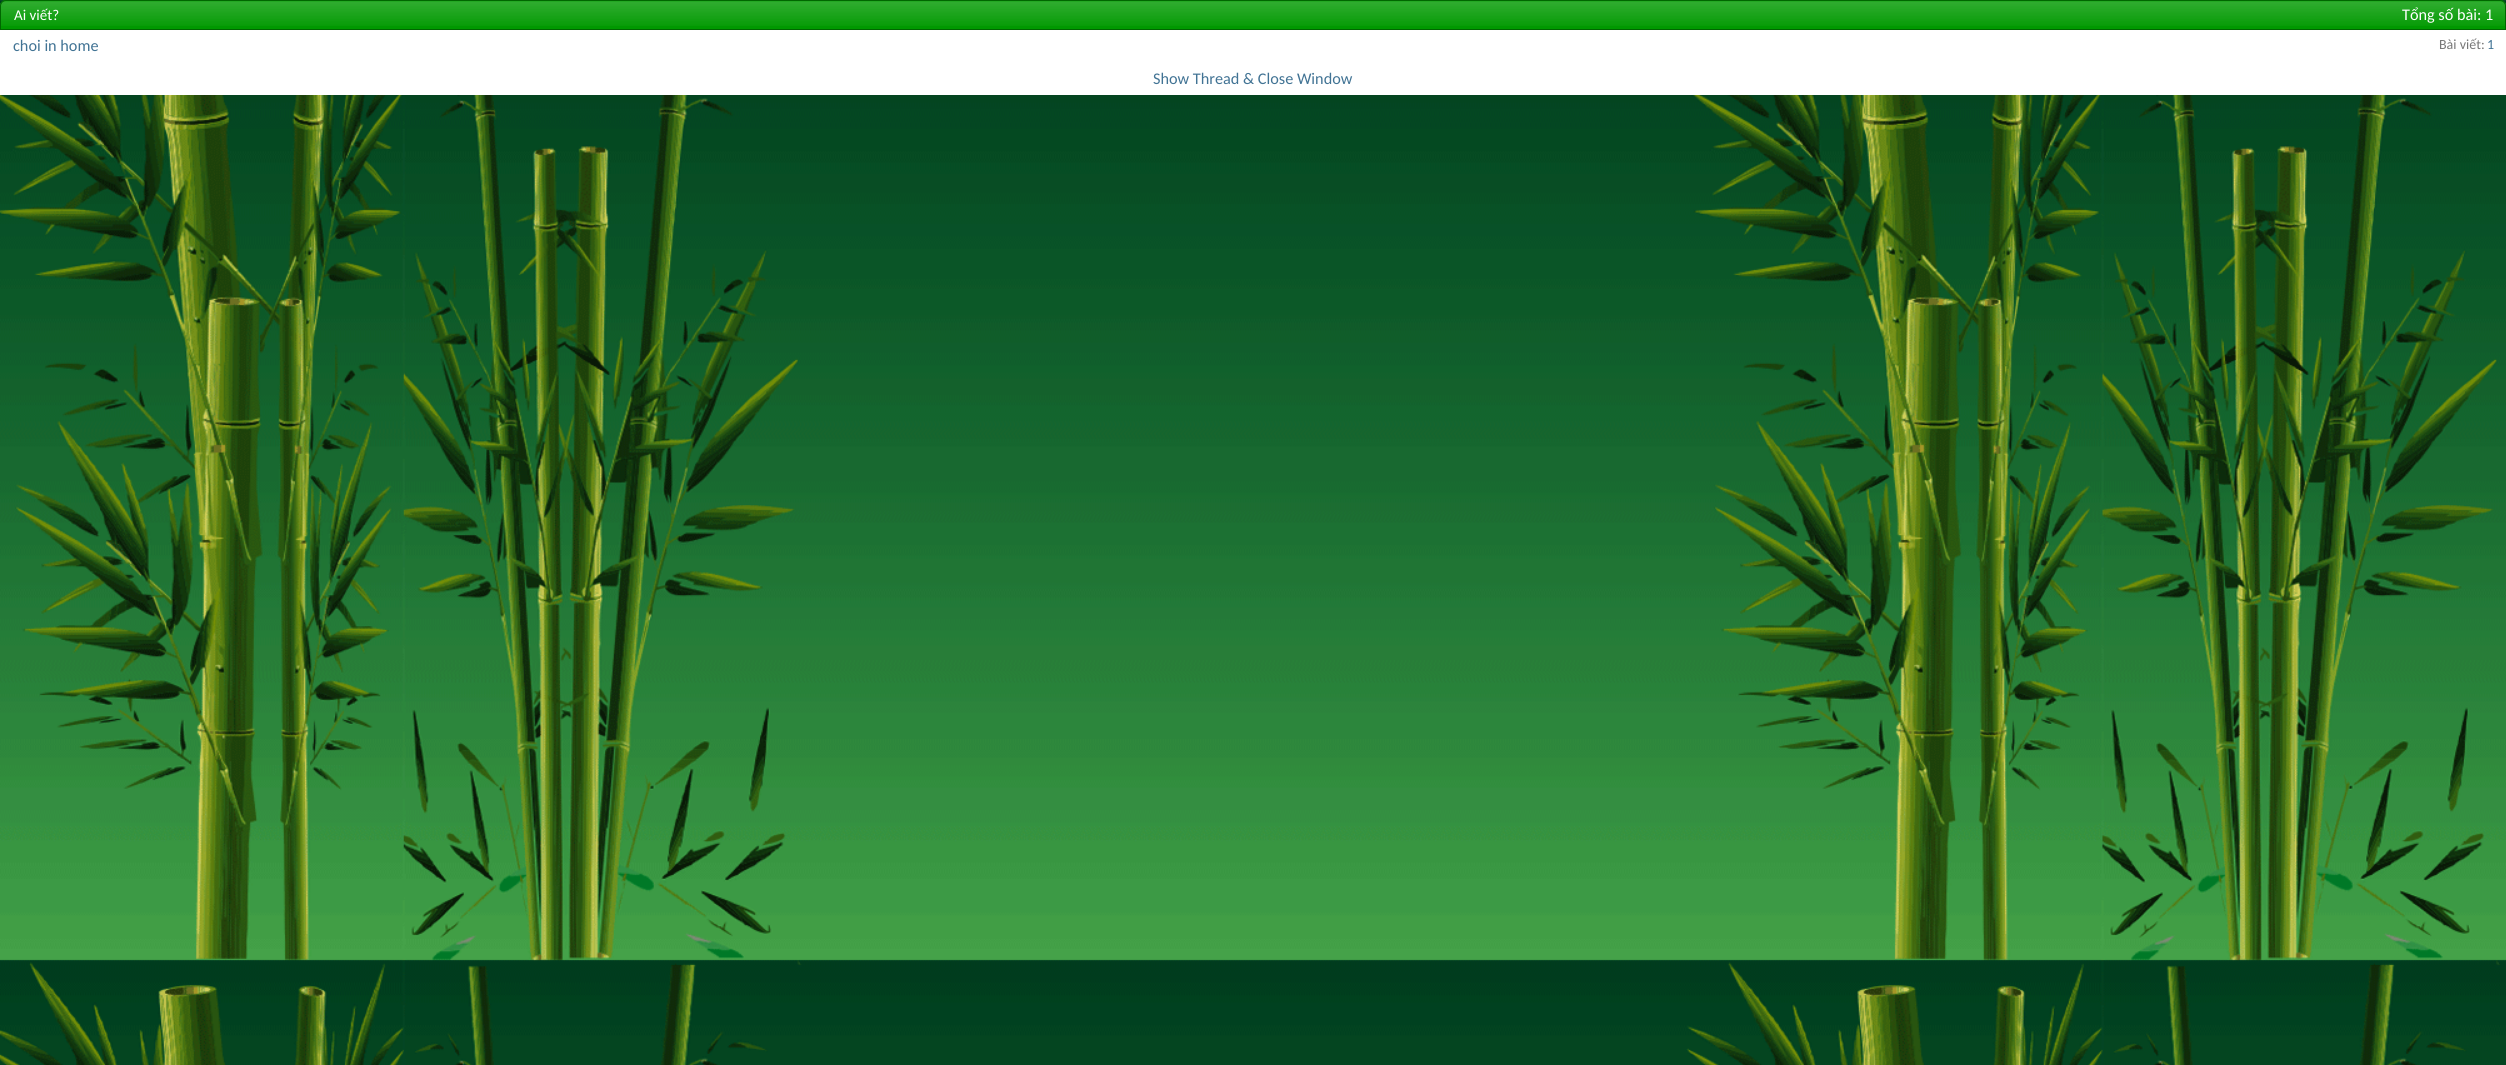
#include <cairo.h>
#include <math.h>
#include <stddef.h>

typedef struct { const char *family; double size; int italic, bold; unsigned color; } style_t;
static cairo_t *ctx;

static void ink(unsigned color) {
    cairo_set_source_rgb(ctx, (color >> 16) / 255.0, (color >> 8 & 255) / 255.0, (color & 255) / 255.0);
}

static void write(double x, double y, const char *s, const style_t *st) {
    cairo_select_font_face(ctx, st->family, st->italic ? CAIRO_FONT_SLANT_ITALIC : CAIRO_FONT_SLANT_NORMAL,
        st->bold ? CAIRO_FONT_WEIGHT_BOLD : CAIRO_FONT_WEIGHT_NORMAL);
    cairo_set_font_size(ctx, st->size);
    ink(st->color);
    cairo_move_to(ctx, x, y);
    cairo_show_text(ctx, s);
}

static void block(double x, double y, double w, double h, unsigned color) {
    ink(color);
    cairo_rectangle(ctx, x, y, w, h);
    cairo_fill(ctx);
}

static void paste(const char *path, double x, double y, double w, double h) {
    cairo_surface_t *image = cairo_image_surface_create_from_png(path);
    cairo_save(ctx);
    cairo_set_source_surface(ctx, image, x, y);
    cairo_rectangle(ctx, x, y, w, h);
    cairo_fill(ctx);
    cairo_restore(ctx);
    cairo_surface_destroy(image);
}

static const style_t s1 = {"Carlito", 15, 0, 0, 0xffffff};
static const style_t s2 = {"Carlito", 16.25, 0, 0, 0xffffff};
static const style_t s3 = {"Carlito", 16.25, 0, 0, 0x417394};
static const style_t s4 = {"Carlito", 14, 0, 0, 0x777777};
static const style_t s5 = {"Carlito", 14, 0, 0, 0x417394};

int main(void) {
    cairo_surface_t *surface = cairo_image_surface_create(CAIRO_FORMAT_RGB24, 2506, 1065);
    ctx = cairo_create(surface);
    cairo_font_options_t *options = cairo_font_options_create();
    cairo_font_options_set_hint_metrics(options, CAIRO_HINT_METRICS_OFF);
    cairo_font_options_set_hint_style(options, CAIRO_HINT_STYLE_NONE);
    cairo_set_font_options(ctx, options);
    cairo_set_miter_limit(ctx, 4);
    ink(0xffffff);
    cairo_paint(ctx);
    paste("pic1.png", 0, 0, 2506, 1065);
    ink(0x009900);
    cairo_new_path(ctx);
    cairo_move_to(ctx, 6, 0);
    cairo_line_to(ctx, 2500, 0);
    cairo_curve_to(ctx, 2503.5, 0, 2506, 2.5, 2506, 6);
    cairo_line_to(ctx, 2506, 30);
    cairo_line_to(ctx, 0, 30);
    cairo_line_to(ctx, 0, 6);
    cairo_curve_to(ctx, 0, 2.5, 2.5, 0, 6, 0);
    cairo_close_path(ctx);
    cairo_fill(ctx);
    paste("pic2.png", 0, 1, 2506, 25);
    cairo_new_path(ctx);
    cairo_move_to(ctx, 6, 0.5);
    cairo_line_to(ctx, 2500, 0.5);
    cairo_curve_to(ctx, 2503, 0.5, 2505.5, 3, 2505.5, 6);
    cairo_line_to(ctx, 2505.5, 29.5);
    cairo_line_to(ctx, 0.5, 29.5);
    cairo_line_to(ctx, 0.5, 6);
    cairo_curve_to(ctx, 0.5, 3, 3, 0.5, 6, 0.5);
    cairo_close_path(ctx);
    ink(0x006600);
    cairo_set_line_width(ctx, 1);
    cairo_stroke(ctx);
    write(14, 20, "Ai viết?", &s1);
    write(2402, 20, "Tổng số bài: 1", &s2);
    block(0, 30, 2506, 65, 0xffffff);
    write(13, 51, "choi in home", &s3);
    write(2439, 49, "Bài viết:", &s4);
    write(2487, 49, "1", &s5);
    write(1153, 84, "Show Thread & Close Window", &s3);
    cairo_surface_write_to_png(surface, "screenshot.png");
    cairo_font_options_destroy(options);
    cairo_destroy(ctx);
    cairo_surface_destroy(surface);
    return 0;
}
